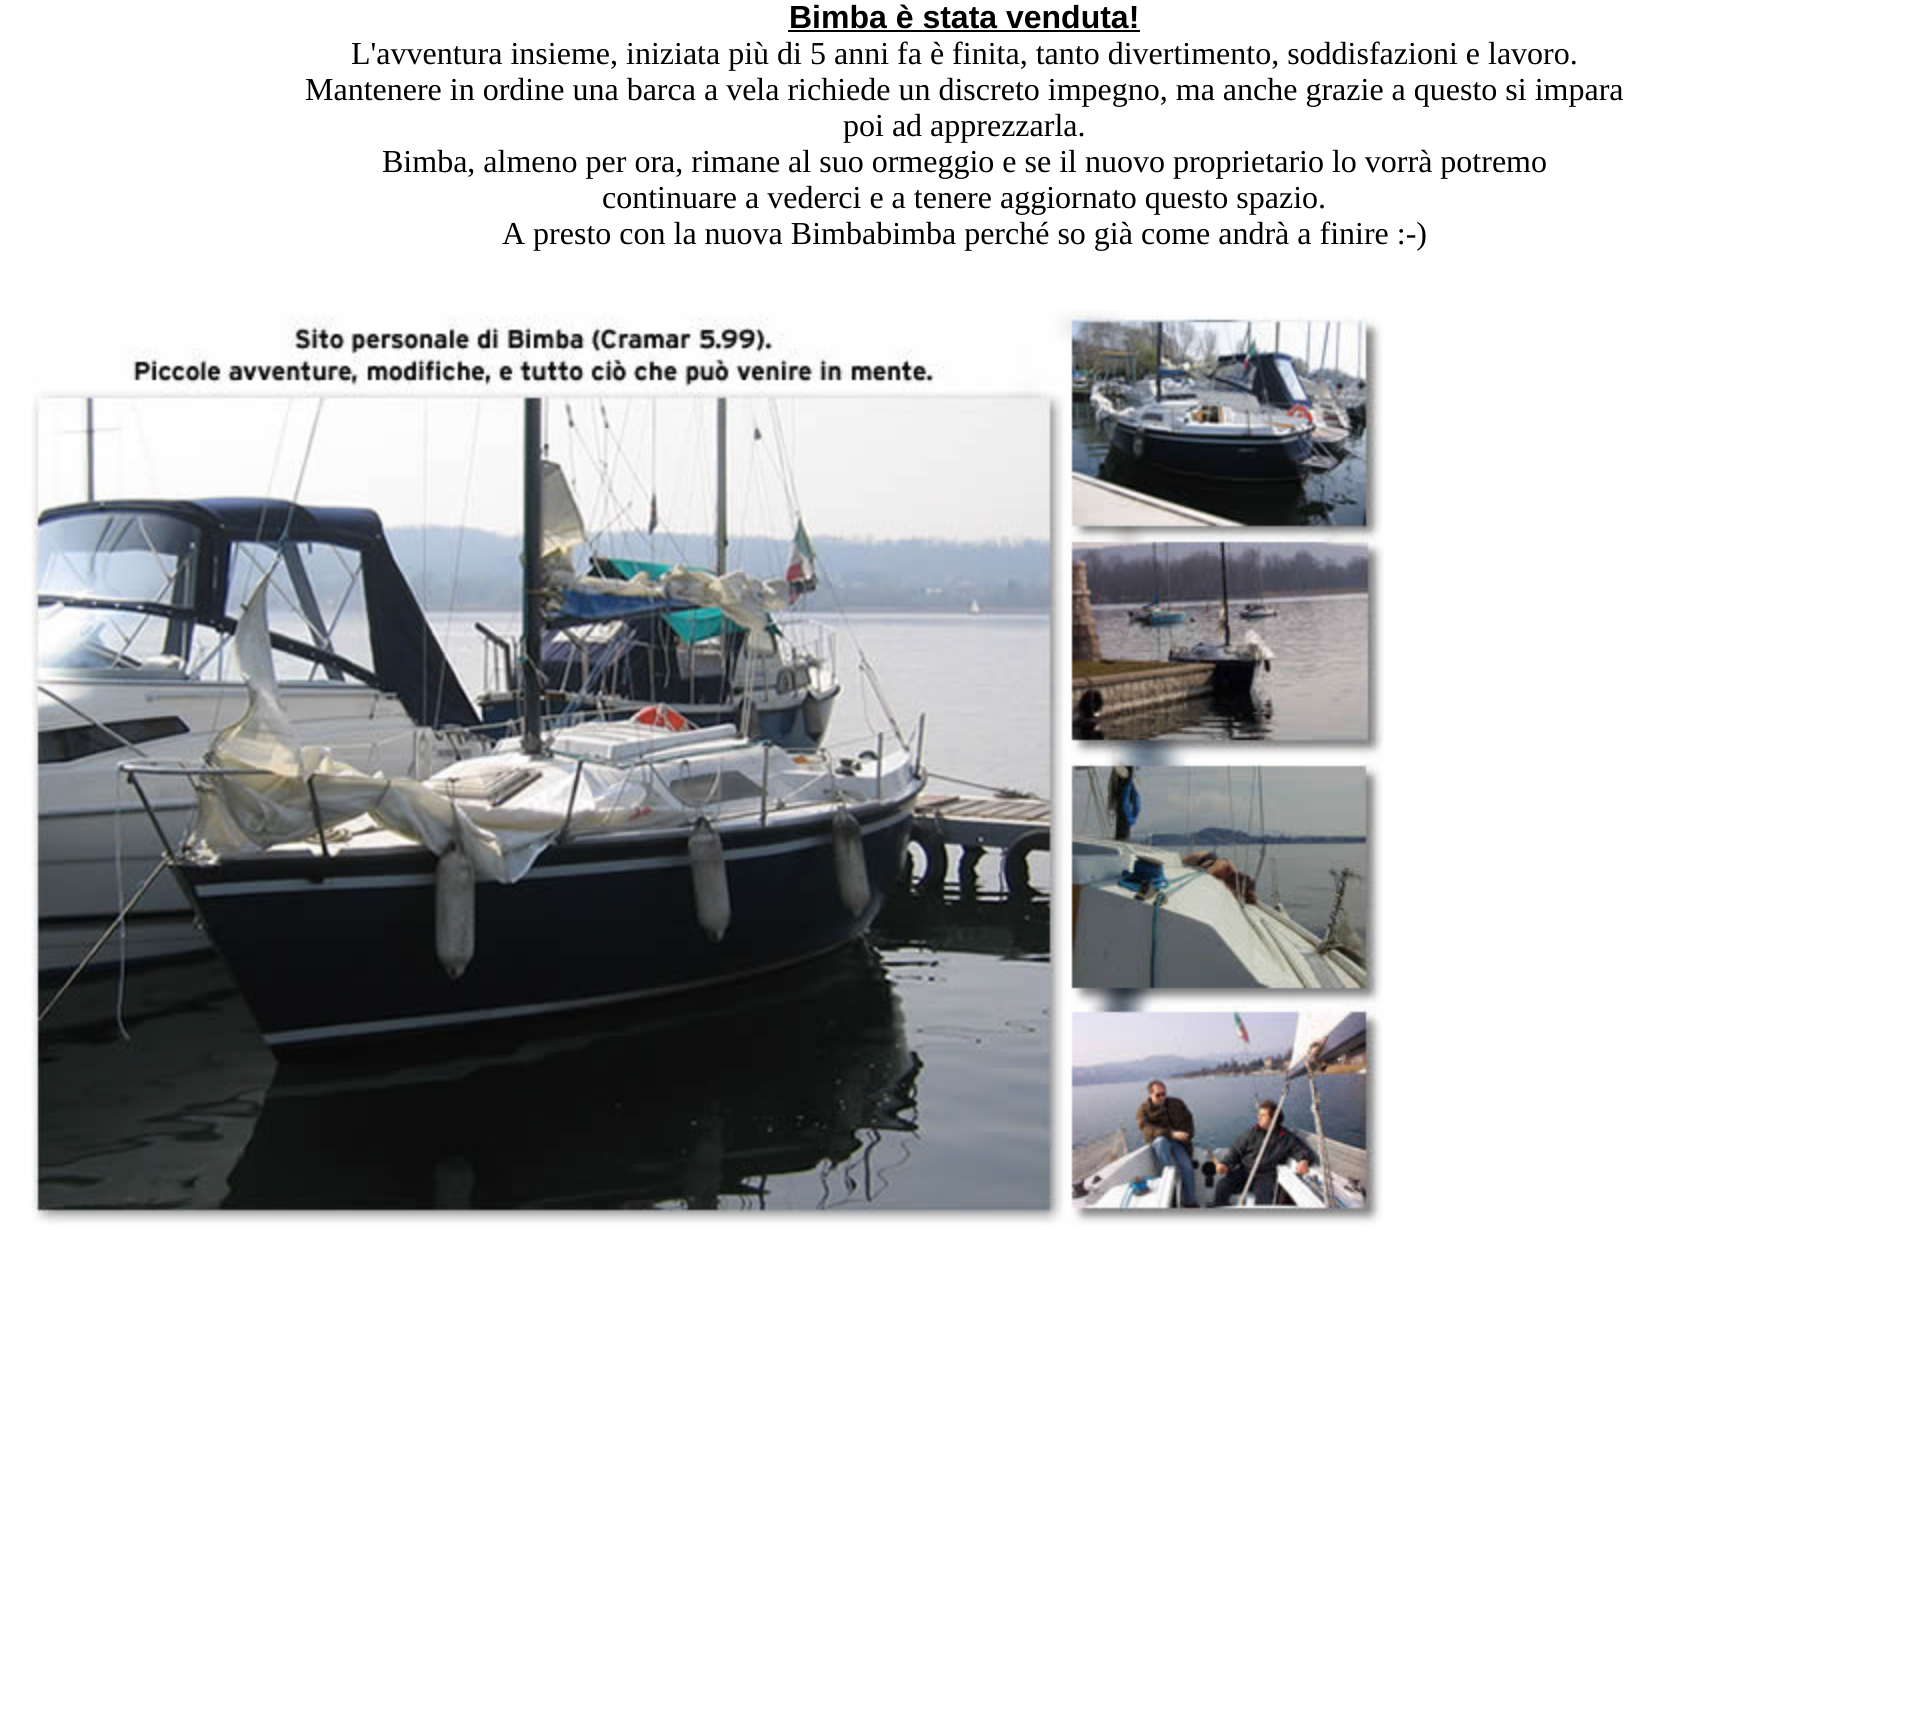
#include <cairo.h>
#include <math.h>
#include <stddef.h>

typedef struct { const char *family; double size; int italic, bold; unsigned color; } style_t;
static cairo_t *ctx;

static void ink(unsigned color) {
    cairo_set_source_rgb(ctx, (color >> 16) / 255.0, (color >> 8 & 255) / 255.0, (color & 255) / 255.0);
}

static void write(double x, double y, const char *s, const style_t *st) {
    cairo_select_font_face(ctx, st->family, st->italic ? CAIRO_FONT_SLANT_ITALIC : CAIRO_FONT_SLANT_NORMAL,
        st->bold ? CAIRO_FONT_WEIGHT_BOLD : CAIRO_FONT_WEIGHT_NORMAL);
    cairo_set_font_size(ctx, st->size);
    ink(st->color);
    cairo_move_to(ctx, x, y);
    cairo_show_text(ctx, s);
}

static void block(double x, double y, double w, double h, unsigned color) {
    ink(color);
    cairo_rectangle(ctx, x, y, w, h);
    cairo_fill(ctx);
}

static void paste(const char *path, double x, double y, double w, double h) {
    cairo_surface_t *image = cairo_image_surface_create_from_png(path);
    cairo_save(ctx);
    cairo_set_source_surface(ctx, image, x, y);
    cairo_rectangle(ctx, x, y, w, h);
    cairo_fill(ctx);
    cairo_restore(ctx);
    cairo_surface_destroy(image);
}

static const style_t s1 = {"Liberation Sans", 32, 0, 1, 0x000000};
static const style_t s2 = {"Liberation Serif", 32, 0, 0, 0x000000};

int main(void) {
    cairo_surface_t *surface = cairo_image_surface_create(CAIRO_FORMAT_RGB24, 1927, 1716);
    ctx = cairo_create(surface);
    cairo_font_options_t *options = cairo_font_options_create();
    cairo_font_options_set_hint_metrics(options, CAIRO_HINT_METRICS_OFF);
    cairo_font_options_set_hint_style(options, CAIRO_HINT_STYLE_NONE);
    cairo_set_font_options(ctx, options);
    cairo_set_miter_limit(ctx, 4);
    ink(0xffffff);
    cairo_paint(ctx);
    write(789, 28, "Bimba è stata venduta!", &s1);
    block(788, 30, 352, 2, 0x000000);
    write(351, 64, "L'avventura insieme, iniziata più di 5 anni fa è finita, tanto divertimento, soddisfazioni e lavoro.", &s2);
    write(305, 100, "Mantenere in ordine una barca a vela richiede un discreto impegno, ma anche grazie a questo si impara", &s2);
    write(843, 136, "poi ad apprezzarla.", &s2);
    write(382, 172, "Bimba, almeno per ora, rimane al suo ormeggio e se il nuovo proprietario lo vorrà potremo", &s2);
    write(602, 208, "continuare a vederci e a tenere aggiornato questo spazio.", &s2);
    write(502, 244, "A presto con la nuova Bimbabimba perché so già come andrà a finire :-)", &s2);
    paste("pic1.png", 31, 310, 1353, 916);
    cairo_surface_write_to_png(surface, "screenshot.png");
    cairo_font_options_destroy(options);
    cairo_destroy(ctx);
    cairo_surface_destroy(surface);
    return 0;
}
